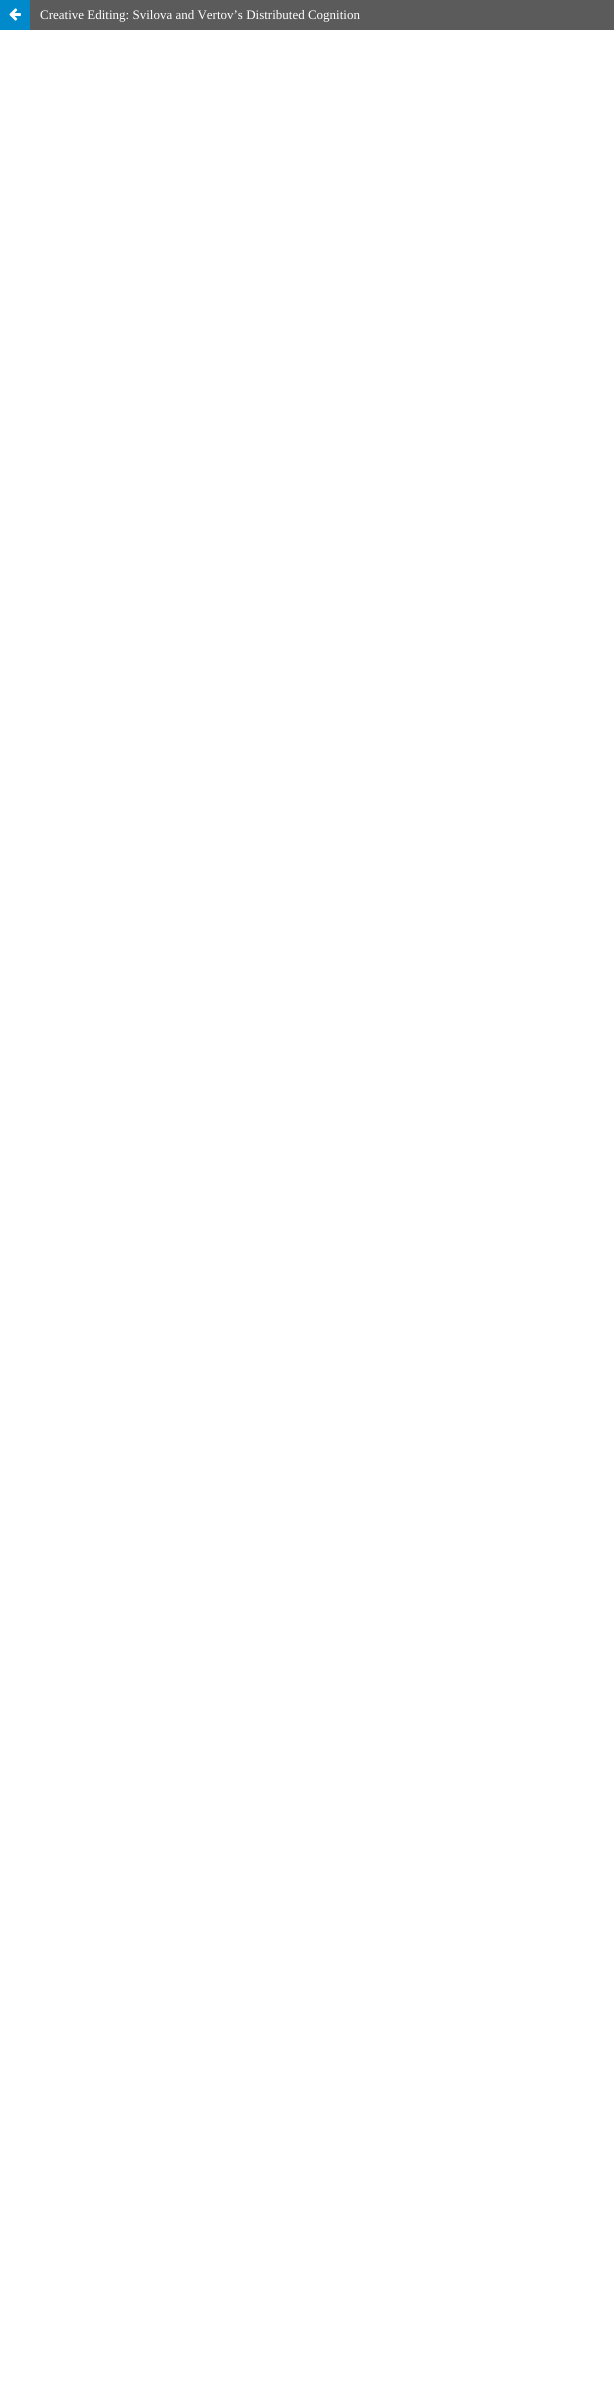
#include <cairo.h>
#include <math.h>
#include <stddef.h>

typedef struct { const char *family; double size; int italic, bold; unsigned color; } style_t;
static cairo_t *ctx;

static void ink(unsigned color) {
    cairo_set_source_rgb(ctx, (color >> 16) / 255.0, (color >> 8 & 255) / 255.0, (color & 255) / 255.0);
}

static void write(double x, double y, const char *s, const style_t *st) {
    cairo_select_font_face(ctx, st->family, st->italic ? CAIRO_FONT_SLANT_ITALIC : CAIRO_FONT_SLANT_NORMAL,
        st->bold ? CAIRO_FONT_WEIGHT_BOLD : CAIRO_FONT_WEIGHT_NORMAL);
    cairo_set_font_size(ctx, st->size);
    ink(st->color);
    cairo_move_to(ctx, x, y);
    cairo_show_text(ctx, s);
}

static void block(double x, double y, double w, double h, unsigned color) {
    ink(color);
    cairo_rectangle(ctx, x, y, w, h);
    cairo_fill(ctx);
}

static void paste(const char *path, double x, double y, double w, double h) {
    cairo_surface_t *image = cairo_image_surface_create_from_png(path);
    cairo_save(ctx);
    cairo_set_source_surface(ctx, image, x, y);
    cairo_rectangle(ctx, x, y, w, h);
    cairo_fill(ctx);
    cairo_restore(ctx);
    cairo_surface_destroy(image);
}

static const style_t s1 = {"Liberation Serif", 13, 0, 0, 0xffffff};

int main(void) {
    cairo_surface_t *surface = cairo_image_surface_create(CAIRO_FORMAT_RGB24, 614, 2408);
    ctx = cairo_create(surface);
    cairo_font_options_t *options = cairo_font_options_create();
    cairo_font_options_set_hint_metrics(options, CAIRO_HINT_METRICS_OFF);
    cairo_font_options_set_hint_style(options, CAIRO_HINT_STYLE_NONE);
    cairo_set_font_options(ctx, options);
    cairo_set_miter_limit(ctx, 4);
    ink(0xffffff);
    cairo_paint(ctx);
    block(30, 0, 584, 30, 0x5b5b5b);
    block(0, 0, 30, 30, 0x008acb);
    paste("pic1.png", 9, 8, 12, 13);
    write(40, 19, "Creative Editing: Svilova and Vertov’s Distributed Cognition", &s1);
    cairo_surface_write_to_png(surface, "screenshot.png");
    cairo_font_options_destroy(options);
    cairo_destroy(ctx);
    cairo_surface_destroy(surface);
    return 0;
}
